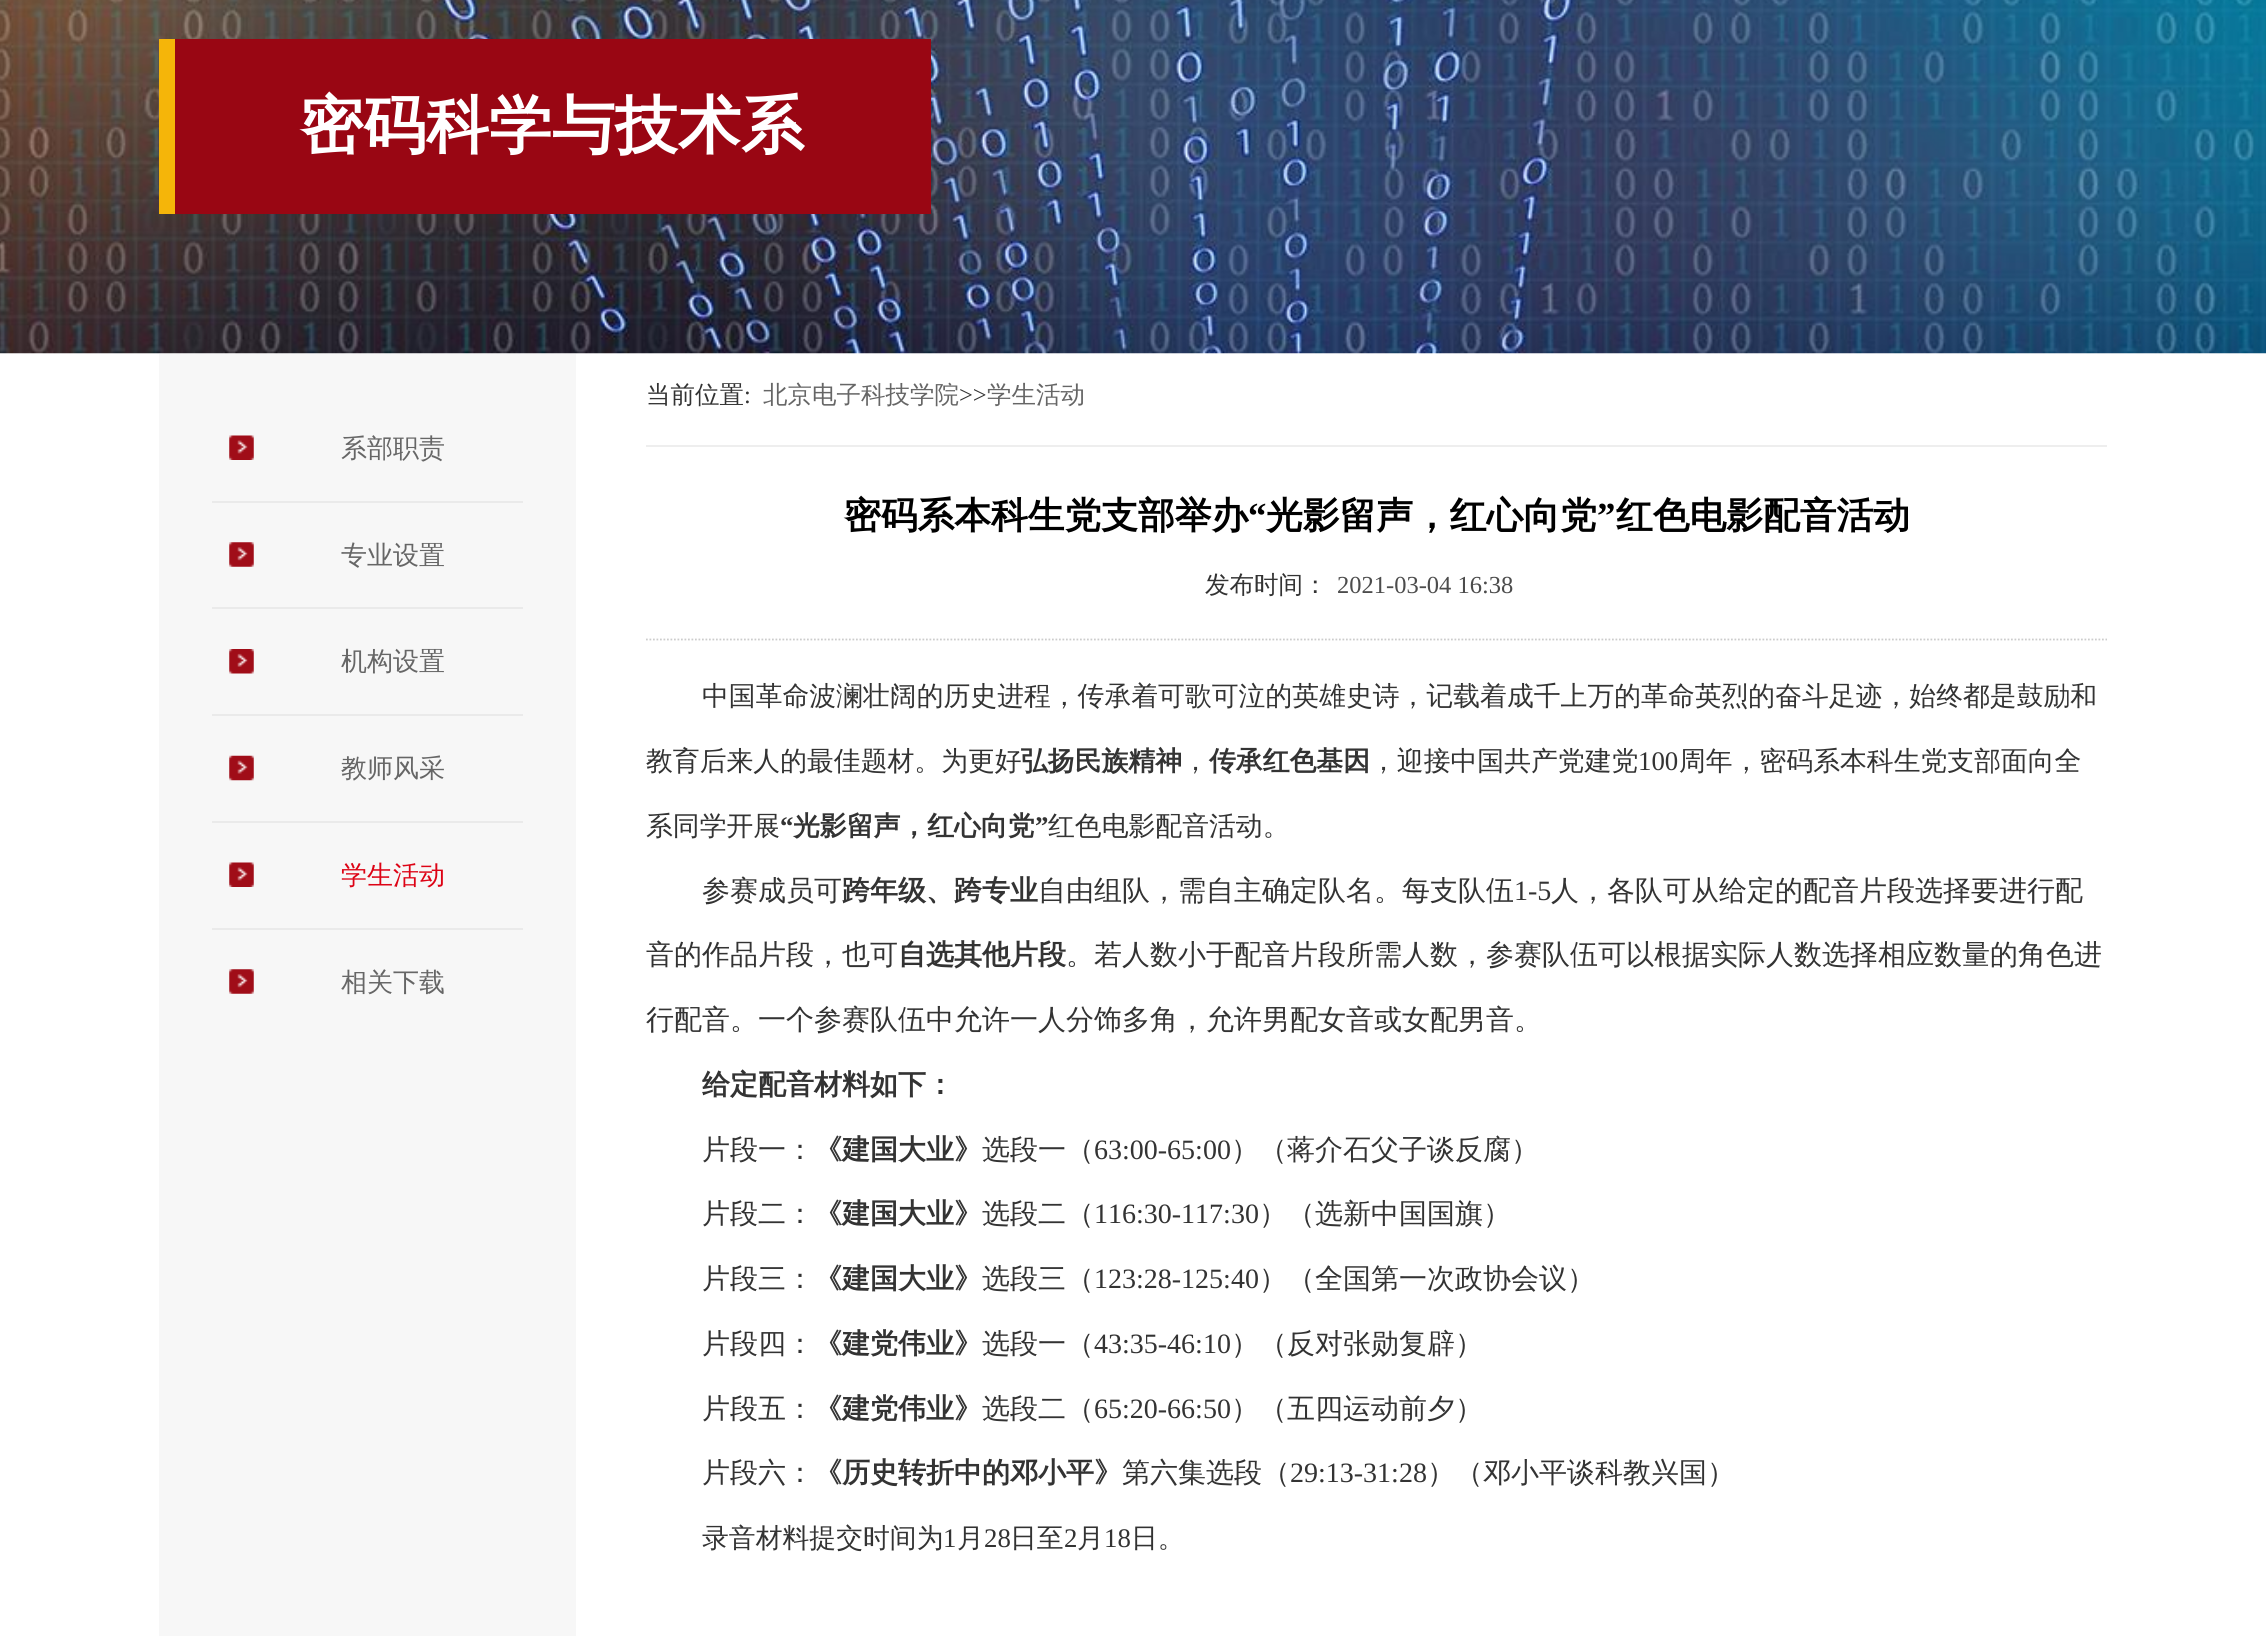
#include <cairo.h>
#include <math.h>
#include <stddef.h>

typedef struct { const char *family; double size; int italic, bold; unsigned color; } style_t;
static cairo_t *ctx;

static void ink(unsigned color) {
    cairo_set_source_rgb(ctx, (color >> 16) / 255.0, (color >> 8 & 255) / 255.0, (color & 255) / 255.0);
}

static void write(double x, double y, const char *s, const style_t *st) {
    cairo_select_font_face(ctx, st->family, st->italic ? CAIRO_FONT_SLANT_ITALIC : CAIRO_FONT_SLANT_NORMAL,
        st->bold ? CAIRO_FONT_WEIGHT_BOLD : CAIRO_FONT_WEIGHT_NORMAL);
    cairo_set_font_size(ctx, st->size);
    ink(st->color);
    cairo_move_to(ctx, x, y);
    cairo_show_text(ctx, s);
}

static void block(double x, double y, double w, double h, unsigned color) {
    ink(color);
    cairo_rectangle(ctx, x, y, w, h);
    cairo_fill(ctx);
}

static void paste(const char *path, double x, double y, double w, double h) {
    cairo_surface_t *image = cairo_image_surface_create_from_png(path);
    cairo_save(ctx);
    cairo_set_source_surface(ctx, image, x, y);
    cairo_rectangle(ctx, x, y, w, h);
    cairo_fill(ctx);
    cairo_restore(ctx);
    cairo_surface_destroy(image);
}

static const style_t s1 = {"WenQuanYi Zen Hei", 63, 0, 1, 0xffffff};
static const style_t s2 = {"WenQuanYi Zen Hei Medium", 26, 0, 0, 0x666666};
static const style_t s3 = {"WenQuanYi Zen Hei Medium", 26, 0, 0, 0xdd0315};
static const style_t s4 = {"WenQuanYi Zen Hei Medium", 24.5, 0, 0, 0x333333};
static const style_t s5 = {"Liberation Serif", 24.5, 0, 0, 0x333333};
static const style_t s6 = {"WenQuanYi Zen Hei Medium", 24.5, 0, 0, 0x666666};
static const style_t s7 = {"WenQuanYi Zen Hei", 36.75, 0, 1, 0x000000};
static const style_t s8 = {"Liberation Serif", 36.75, 0, 1, 0x000000};
static const style_t s9 = {"Liberation Serif", 24.5, 0, 0, 0x4c4c4c};
static const style_t s10 = {"WenQuanYi Zen Hei Medium", 26.83, 0, 0, 0x333333};
static const style_t s11 = {"WenQuanYi Zen Hei", 26.83, 0, 1, 0x333333};
static const style_t s12 = {"Liberation Serif", 26.83, 0, 0, 0x333333};
static const style_t s13 = {"Liberation Serif", 26.83, 0, 1, 0x333333};
static const style_t s14 = {"WenQuanYi Zen Hei Medium", 28, 0, 0, 0x333333};
static const style_t s15 = {"WenQuanYi Zen Hei", 28, 0, 1, 0x333333};
static const style_t s16 = {"Liberation Serif", 28, 0, 0, 0x333333};

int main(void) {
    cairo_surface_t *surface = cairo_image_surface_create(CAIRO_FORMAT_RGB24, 2266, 1636);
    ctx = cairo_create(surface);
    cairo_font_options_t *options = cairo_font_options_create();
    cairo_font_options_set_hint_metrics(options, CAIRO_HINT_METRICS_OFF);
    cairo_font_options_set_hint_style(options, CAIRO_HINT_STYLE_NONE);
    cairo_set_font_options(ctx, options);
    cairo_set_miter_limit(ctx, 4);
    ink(0xffffff);
    cairo_paint(ctx);
    paste("pic1.png", 0, 0, 2266, 354);
    block(175, 39, 756, 175, 0x990613);
    block(159, 39, 16, 175, 0xf5b509);
    write(300, 147, "密码科学与技术系", &s1);
    block(159, 354, 417, 1282, 0xf7f7f7);
    paste("pic2.png", 229, 435, 25, 25);
    write(341, 457, "系部职责", &s2);
    block(212, 501, 311, 2, 0xeaeaea);
    paste("pic3.png", 229, 542, 25, 25);
    write(341, 564, "专业设置", &s2);
    block(212, 607, 311, 2, 0xeaeaea);
    paste("pic4.png", 229, 649, 25, 25);
    write(341, 670, "机构设置", &s2);
    block(212, 714, 311, 2, 0xeaeaea);
    paste("pic5.png", 229, 755, 25, 26);
    write(341, 777, "教师风采", &s2);
    block(212, 821, 311, 2, 0xeaeaea);
    paste("pic2.png", 229, 862, 25, 25);
    write(341, 884, "学生活动", &s3);
    block(212, 928, 311, 2, 0xeaeaea);
    paste("pic3.png", 229, 969, 25, 25);
    write(341, 991, "相关下载", &s2);
    block(646, 445, 1461, 2, 0xeeeeee);
    write(646, 403, "当前位置", &s4);
    write(744, 403, ":", &s5);
    write(763, 403, "北京电子科技学院", &s6);
    write(959, 403, ">>", &s5);
    write(987, 403, "学生活动", &s6);
    write(844, 528, "密码系本科生党支部举办", &s7);
    write(1248, 528, "“", &s8);
    write(1266, 528, "光影留声，红心向党", &s7);
    write(1597, 528, "”", &s8);
    write(1616, 528, "红色电影配音活动", &s7);
    cairo_new_path(ctx);
    cairo_move_to(ctx, 646, 639.5);
    cairo_line_to(ctx, 2107, 639.5);
    ink(0xcccccc);
    cairo_set_line_width(ctx, 1.8);
    cairo_set_dash(ctx, (double[]){1.75, 1.75}, 2, 0);
    cairo_stroke(ctx);
    write(1205, 593, "发布时间：", &s4);
    write(1337, 593, "2021-03-04 16:38", &s9);
    write(702, 705, "中国革命波澜壮阔的历史进程，传承着可歌可泣的英雄史诗，记载着成千上万的革命英烈的奋斗足迹，始终都是鼓励和", &s10);
    write(646, 770, "教育后来人的最佳题材。为更好", &s10);
    write(1021, 770, "弘扬民族精神", &s11);
    write(1182, 770, "，", &s10);
    write(1209, 770, "传承红色基因", &s11);
    write(1370, 770, "，迎接中国共产党建党", &s10);
    write(1638, 770, "100", &s12);
    write(1679, 770, "周年，密码系本科生党支部面向全", &s10);
    write(646, 835, "系同学开展", &s10);
    write(780, 835, "“", &s13);
    write(793, 835, "光影留声，红心向党", &s11);
    write(1035, 835, "”", &s13);
    write(1048, 835, "红色电影配音活动。", &s10);
    write(702, 900, "参赛成员可", &s14);
    write(842, 900, "跨年级、跨专业", &s15);
    write(1038, 900, "自由组队，需自主确定队名。每支队伍", &s14);
    write(1514, 900, "1-5", &s16);
    write(1551, 900, "人，各队可从给定的配音片段选择要进行配", &s14);
    write(646, 964, "音的作品片段，也可", &s14);
    write(898, 964, "自选其他片段", &s15);
    write(1066, 964, "。若人数小于配音片段所需人数，参赛队伍可以根据实际人数选择相应数量的角色进", &s14);
    write(646, 1029, "行配音。一个参赛队伍中允许一人分饰多角，允许男配女音或女配男音。", &s14);
    write(702, 1094, "给定配音材料如下：", &s15);
    write(702, 1159, "片段一：", &s14);
    write(814, 1159, "《建国大业》", &s15);
    write(982, 1159, "选段一（", &s14);
    write(1094, 1159, "63:00-65:00", &s16);
    write(1231, 1159, "）（蒋介石父子谈反腐）", &s14);
    write(702, 1223, "片段二：", &s14);
    write(814, 1223, "《建国大业》", &s15);
    write(982, 1223, "选段二（", &s14);
    write(1094, 1223, "116:30-117:30", &s16);
    write(1259, 1223, "）（选新中国国旗）", &s14);
    write(702, 1288, "片段三：", &s14);
    write(814, 1288, "《建国大业》", &s15);
    write(982, 1288, "选段三（", &s14);
    write(1094, 1288, "123:28-125:40", &s16);
    write(1259, 1288, "）（全国第一次政协会议）", &s14);
    write(702, 1353, "片段四：", &s14);
    write(814, 1353, "《建党伟业》", &s15);
    write(982, 1353, "选段一（", &s14);
    write(1094, 1353, "43:35-46:10", &s16);
    write(1231, 1353, "）（反对张勋复辟）", &s14);
    write(702, 1418, "片段五：", &s14);
    write(814, 1418, "《建党伟业》", &s15);
    write(982, 1418, "选段二（", &s14);
    write(1094, 1418, "65:20-66:50", &s16);
    write(1231, 1418, "）（五四运动前夕）", &s14);
    write(702, 1482, "片段六：", &s14);
    write(814, 1482, "《历史转折中的邓小平》", &s15);
    write(1122, 1482, "第六集选段（", &s14);
    write(1290, 1482, "29:13-31:28", &s16);
    write(1427, 1482, "）（邓小平谈科教兴国）", &s14);
    write(702, 1547, "录音材料提交时间为", &s10);
    write(943, 1547, "1", &s12);
    write(957, 1547, "月", &s10);
    write(984, 1547, "28", &s12);
    write(1010, 1547, "日至", &s10);
    write(1064, 1547, "2", &s12);
    write(1077, 1547, "月", &s10);
    write(1104, 1547, "18", &s12);
    write(1131, 1547, "日。", &s10);
    cairo_surface_write_to_png(surface, "screenshot.png");
    cairo_font_options_destroy(options);
    cairo_destroy(ctx);
    cairo_surface_destroy(surface);
    return 0;
}
